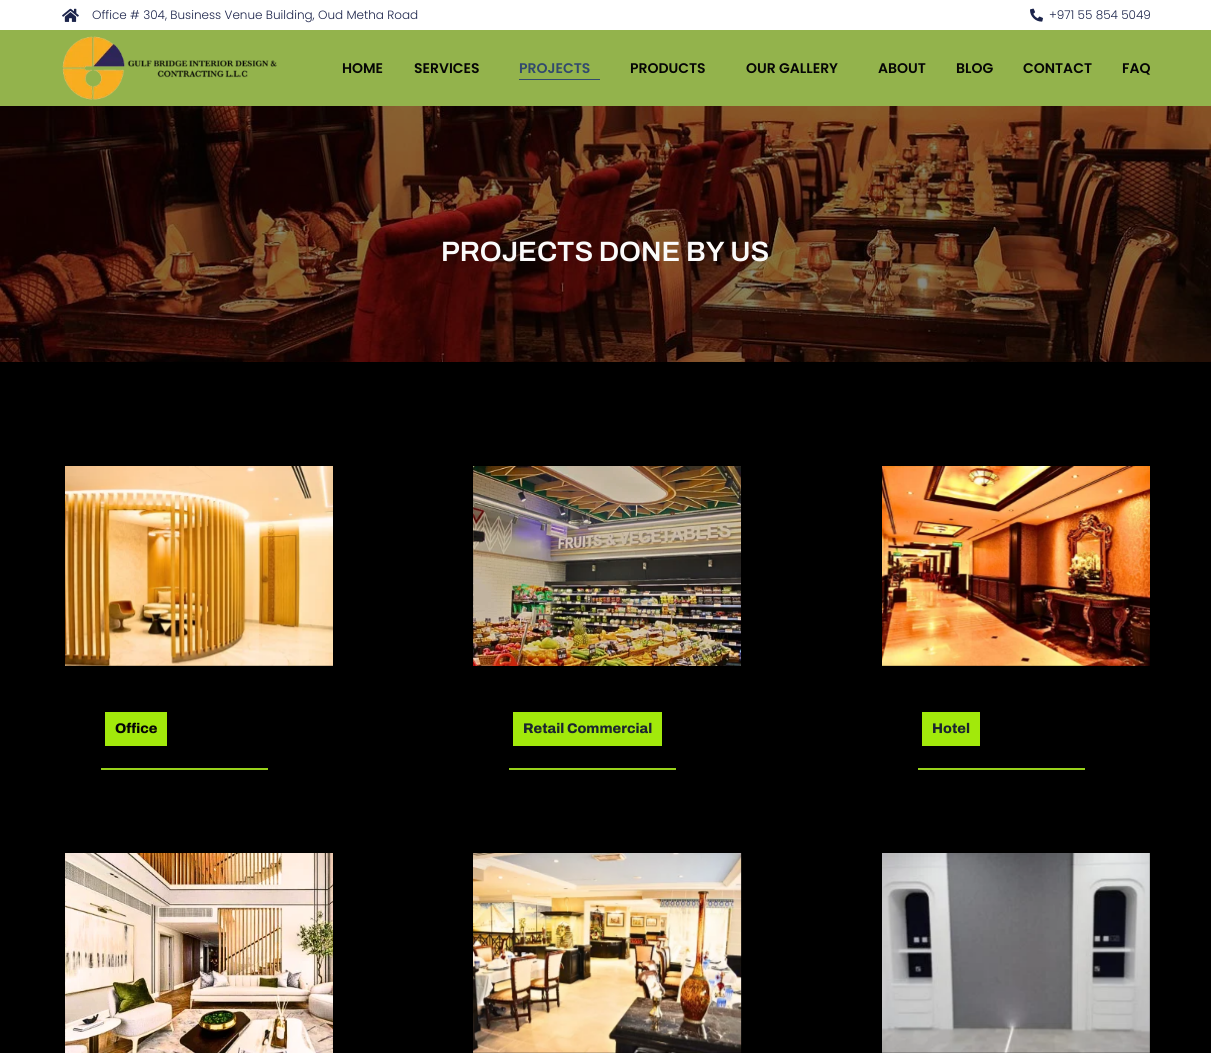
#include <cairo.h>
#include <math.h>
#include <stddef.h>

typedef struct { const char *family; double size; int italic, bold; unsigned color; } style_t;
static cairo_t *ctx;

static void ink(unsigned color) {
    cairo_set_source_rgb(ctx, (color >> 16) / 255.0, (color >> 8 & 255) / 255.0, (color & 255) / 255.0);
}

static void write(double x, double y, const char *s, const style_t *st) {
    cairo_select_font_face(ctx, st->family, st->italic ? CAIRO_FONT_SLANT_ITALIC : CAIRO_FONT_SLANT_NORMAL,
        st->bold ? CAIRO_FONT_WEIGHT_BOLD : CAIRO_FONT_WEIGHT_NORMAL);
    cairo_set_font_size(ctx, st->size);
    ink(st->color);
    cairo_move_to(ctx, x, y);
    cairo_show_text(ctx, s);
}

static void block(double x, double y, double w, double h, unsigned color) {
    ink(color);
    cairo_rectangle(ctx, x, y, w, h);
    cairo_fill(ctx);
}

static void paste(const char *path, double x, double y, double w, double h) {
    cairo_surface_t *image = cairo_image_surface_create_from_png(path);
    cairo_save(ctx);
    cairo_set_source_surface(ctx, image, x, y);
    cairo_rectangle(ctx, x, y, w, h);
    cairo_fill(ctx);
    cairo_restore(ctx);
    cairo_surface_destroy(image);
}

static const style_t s1 = {"Poppins Light", 12, 0, 0, 0x1c244b};
static const style_t s2 = {"Poppins SemiBold", 14, 0, 0, 0x050505};
static const style_t s3 = {"Poppins SemiBold", 14, 0, 0, 0x324a6d};
static const style_t s4 = {"Archivo SemiBold", 28, 0, 0, 0xfbfbfb};
static const style_t s5 = {"Archivo ExtraBold", 14, 0, 0, 0x050505};
static const style_t s6 = {"Archivo ExtraBold", 14, 0, 0, 0x1b252f};

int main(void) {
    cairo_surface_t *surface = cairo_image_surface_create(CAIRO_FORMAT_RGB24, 1211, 1053);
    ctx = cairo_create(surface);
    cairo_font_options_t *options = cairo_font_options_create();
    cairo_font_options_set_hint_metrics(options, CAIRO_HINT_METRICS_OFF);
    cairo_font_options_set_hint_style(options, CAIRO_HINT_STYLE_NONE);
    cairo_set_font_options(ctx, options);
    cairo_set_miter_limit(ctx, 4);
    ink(0xffffff);
    cairo_paint(ctx);
    paste("pic1.png", 62, 8, 17, 14);
    write(92, 19, "Office # 304, Business Venue Building, Oud Metha Road", &s1);
    paste("pic2.png", 1030, 8, 13, 14);
    write(1049, 19, "+971 55 854 5049", &s1);
    block(0, 30, 1211, 76, 0x93b34c);
    paste("pic3.png", 62, 36, 215, 64);
    write(342, 73, "HOME", &s2);
    write(414, 73, "SERVICES", &s2);
    write(519, 73, "PROJECTS", &s3);
    block(519, 79, 81, 1, 0x324a6d);
    write(630, 73, "PRODUCTS", &s2);
    write(746, 73, "OUR GALLERY", &s2);
    write(878, 73, "ABOUT", &s2);
    write(956, 73, "BLOG", &s2);
    write(1023, 73, "CONTACT", &s2);
    write(1122, 73, "FAQ", &s2);
    paste("pic4.png", 0, 106, 1211, 256);
    write(441, 261, "PROJECTS DONE BY US", &s4);
    block(0, 362, 1211, 691, 0x000000);
    paste("pic5.png", 65, 466, 268, 200);
    block(105, 712, 62, 34, 0xa2e90b);
    write(115, 733, "Office", &s5);
    block(101, 768, 167, 2, 0x98d21b);
    paste("pic6.png", 473, 466, 268, 200);
    block(513, 712, 149, 34, 0xa2e90b);
    write(523, 733, "Retail Commercial", &s6);
    block(509, 768, 167, 2, 0x98d21b);
    paste("pic7.png", 882, 466, 268, 200);
    block(922, 712, 58, 34, 0xa2e90b);
    write(932, 733, "Hotel", &s6);
    block(918, 768, 167, 2, 0x98d21b);
    paste("pic8.png", 65, 853, 268, 200);
    paste("pic9.png", 473, 853, 269, 200);
    paste("pic10.png", 882, 853, 268, 200);
    cairo_surface_write_to_png(surface, "screenshot.png");
    cairo_font_options_destroy(options);
    cairo_destroy(ctx);
    cairo_surface_destroy(surface);
    return 0;
}
